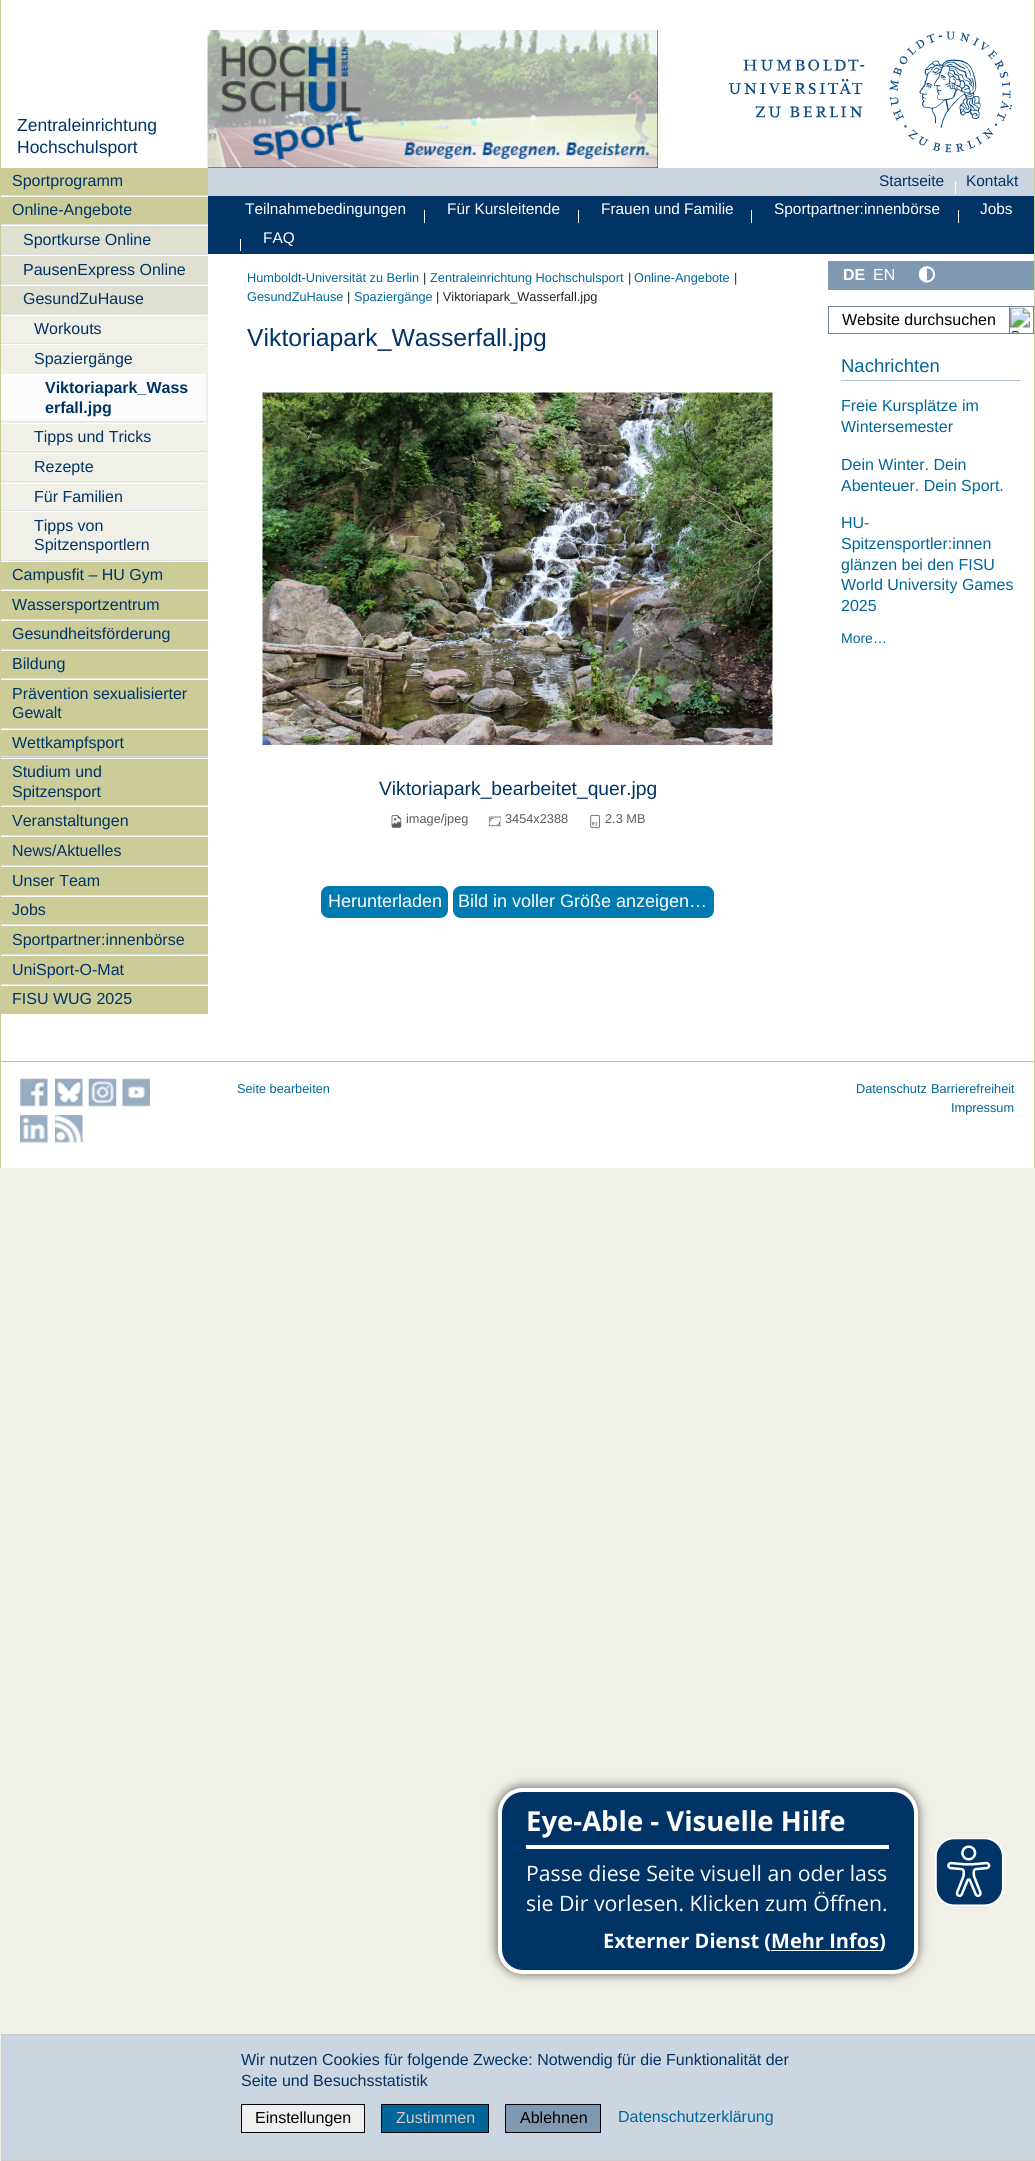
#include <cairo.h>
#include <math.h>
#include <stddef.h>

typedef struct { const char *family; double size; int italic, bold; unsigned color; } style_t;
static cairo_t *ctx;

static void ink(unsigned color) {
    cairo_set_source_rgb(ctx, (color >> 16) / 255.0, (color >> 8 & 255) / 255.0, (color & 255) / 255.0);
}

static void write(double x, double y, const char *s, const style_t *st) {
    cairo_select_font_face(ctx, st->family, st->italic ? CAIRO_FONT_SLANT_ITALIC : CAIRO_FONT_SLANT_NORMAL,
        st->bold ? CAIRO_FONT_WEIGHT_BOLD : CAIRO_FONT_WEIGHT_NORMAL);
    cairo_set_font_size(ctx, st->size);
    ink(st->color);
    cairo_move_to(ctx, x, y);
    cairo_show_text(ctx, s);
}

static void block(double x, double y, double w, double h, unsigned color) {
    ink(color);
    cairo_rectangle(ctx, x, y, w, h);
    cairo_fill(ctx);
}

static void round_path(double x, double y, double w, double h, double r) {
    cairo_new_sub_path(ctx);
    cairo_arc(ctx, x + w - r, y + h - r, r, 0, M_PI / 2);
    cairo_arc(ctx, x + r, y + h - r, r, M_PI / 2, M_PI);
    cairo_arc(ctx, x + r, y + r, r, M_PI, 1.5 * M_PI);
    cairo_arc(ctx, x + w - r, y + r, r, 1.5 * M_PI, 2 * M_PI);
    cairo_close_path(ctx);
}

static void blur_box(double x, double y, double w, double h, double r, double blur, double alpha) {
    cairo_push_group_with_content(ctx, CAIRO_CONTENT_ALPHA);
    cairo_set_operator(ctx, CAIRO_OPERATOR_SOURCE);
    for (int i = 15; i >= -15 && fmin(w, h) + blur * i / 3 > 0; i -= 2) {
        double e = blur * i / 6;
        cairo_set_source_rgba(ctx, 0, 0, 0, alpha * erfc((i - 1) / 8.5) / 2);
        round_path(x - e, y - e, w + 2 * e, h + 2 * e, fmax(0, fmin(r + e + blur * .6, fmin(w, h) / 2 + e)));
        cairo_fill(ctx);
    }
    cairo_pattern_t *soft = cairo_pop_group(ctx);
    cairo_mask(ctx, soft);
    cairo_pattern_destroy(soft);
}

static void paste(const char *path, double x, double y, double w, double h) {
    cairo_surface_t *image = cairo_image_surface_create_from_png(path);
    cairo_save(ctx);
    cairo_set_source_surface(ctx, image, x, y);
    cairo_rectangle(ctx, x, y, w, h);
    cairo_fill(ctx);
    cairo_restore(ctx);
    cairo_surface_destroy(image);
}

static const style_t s1 = {"Liberation Sans", 17.5, 0, 0, 0x003366};
static const style_t s2 = {"Liberation Sans", 16, 0, 0, 0x003366};
static const style_t s3 = {"Liberation Sans", 16, 0, 1, 0x003366};
static const style_t s4 = {"Liberation Sans", 15.4, 0, 0, 0x003366};
static const style_t s5 = {"Liberation Sans", 15.4, 0, 0, 0xffffff};
static const style_t s6 = {"Liberation Sans", 12.75, 0, 0, 0x006699};
static const style_t s7 = {"Liberation Sans", 12.75, 0, 0, 0x212529};
static const style_t s8 = {"Liberation Sans", 24.75, 0, 0, 0x003366};
static const style_t s9 = {"Liberation Sans", 19.25, 0, 0, 0x003366};
static const style_t s10 = {"Liberation Sans", 12.75, 0, 0, 0x595c5f};
static const style_t s11 = {"Liberation Sans", 18, 0, 0, 0xffffff};
static const style_t s12 = {"Liberation Sans", 16, 0, 1, 0xffffff};
static const style_t s13 = {"Liberation Sans", 16, 0, 0, 0xffffff};
static const style_t s14 = {"Liberation Sans", 16, 0, 0, 0x000000};
static const style_t s15 = {"Liberation Sans", 18.5, 0, 0, 0x006699};
static const style_t s16 = {"Liberation Sans", 16, 0, 0, 0x006699};
static const style_t s17 = {"Liberation Sans", 14, 0, 0, 0x006699};
static const style_t s18 = {"Liberation Sans", 16, 0, 0, 0xd5c7c7};
static const style_t s19 = {"Open Sans", 27.5, 0, 1, 0xffffff};
static const style_t s20 = {"Open Sans", 21.25, 0, 0, 0xffffff};
static const style_t s21 = {"Open Sans", 20, 0, 1, 0xffffff};

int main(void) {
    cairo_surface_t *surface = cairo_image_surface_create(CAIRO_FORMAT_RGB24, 1035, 2161);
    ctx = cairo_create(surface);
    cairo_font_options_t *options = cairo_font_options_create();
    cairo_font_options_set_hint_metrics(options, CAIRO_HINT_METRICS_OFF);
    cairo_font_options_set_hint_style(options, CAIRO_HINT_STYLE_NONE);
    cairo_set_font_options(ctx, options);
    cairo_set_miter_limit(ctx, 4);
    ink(0xf0f0e8);
    cairo_paint(ctx);
    block(1, 0, 1033, 1168, 0xffffff);
    block(208, 30, 450, 138, 0x003366);
    paste("pic1.png", 207, 30, 451, 138);
    paste("pic2.png", 729, 31, 283, 122);
    block(1034, 0, 1, 1168, 0xcccc99);
    block(0, 0, 1, 1168, 0xcccc99);
    write(17, 131, "Zentraleinrichtung", &s1);
    write(17, 153, "Hochschulsport", &s1);
    block(1, 168, 207, 27, 0xcccc99);
    write(12, 186, "Sportprogramm", &s2);
    block(1, 197, 207, 27, 0xcccc99);
    block(1, 195, 207, 1, 0xdee2e6);
    write(12, 215, "Online-Angebote", &s2);
    block(1, 226, 207, 28, 0xe0e0d1);
    block(1, 224, 207, 1, 0xdee2e6);
    write(23, 245, "Sportkurse Online", &s2);
    block(1, 256, 207, 28, 0xe0e0d1);
    block(1, 254, 207, 1, 0xdee2e6);
    write(23, 275, "PausenExpress Online", &s2);
    block(1, 286, 207, 28, 0xe0e0d1);
    block(1, 284, 207, 1, 0xdee2e6);
    write(23, 304, "GesundZuHause", &s2);
    block(1, 315, 207, 28, 0xf0f0e8);
    block(1, 314, 207, 1, 0xdee2e6);
    block(206, 314, 1, 1, 0xf0f0e8);
    block(1, 315, 205, 1, 0xffffff);
    write(34, 334, "Workouts", &s2);
    block(1, 344, 207, 77, 0xf0f0e8);
    block(1, 343, 207, 1, 0xdee2e6);
    block(206, 343, 1, 1, 0xf0f0e8);
    block(1, 344, 205, 1, 0xffffff);
    write(34, 364, "Spaziergänge", &s2);
    block(1, 375, 205, 46, 0xfcfcfd);
    block(1, 374, 205, 1, 0xffffff);
    write(45, 393, "Viktoriapark_Wass", &s3);
    write(45, 413, "erfall.jpg", &s3);
    block(1, 422, 207, 29, 0xf0f0e8);
    block(1, 421, 207, 1, 0xdee2e6);
    block(206, 421, 1, 1, 0xf0f0e8);
    block(1, 423, 205, 1, 0xffffff);
    write(34, 442, "Tipps und Tricks", &s2);
    block(1, 452, 207, 29, 0xf0f0e8);
    block(1, 451, 207, 1, 0xdee2e6);
    block(206, 451, 1, 1, 0xf0f0e8);
    block(1, 453, 205, 1, 0xffffff);
    write(34, 472, "Rezepte", &s2);
    block(1, 482, 207, 28, 0xf0f0e8);
    block(1, 481, 207, 1, 0xdee2e6);
    block(206, 481, 1, 1, 0xf0f0e8);
    block(1, 483, 205, 1, 0xffffff);
    write(34, 502, "Für Familien", &s2);
    block(1, 511, 207, 49, 0xf0f0e8);
    block(1, 510, 207, 1, 0xdee2e6);
    block(206, 510, 1, 1, 0xf0f0e8);
    block(1, 511, 205, 1, 0xffffff);
    write(34, 531, "Tipps von", &s2);
    write(34, 550, "Spitzensportlern", &s2);
    block(1, 562, 207, 27, 0xcccc99);
    block(1, 560, 207, 1, 0xdee2e6);
    write(12, 580, "Campusfit – HU Gym", &s2);
    block(1, 591, 207, 28, 0xcccc99);
    block(1, 589, 207, 1, 0xdee2e6);
    write(12, 610, "Wassersportzentrum", &s2);
    block(1, 621, 207, 28, 0xcccc99);
    block(1, 619, 207, 1, 0xdee2e6);
    write(12, 639, "Gesundheitsförderung", &s2);
    block(1, 651, 207, 27, 0xcccc99);
    block(1, 649, 207, 1, 0xdee2e6);
    write(12, 669, "Bildung", &s2);
    block(1, 680, 207, 48, 0xcccc99);
    block(1, 678, 207, 1, 0xdee2e6);
    write(12, 699, "Prävention sexualisierter", &s2);
    write(12, 718, "Gewalt", &s2);
    block(1, 730, 207, 26, 0xcccc99);
    block(1, 728, 207, 1, 0xdee2e6);
    write(12, 748, "Wettkampfsport", &s2);
    block(1, 757, 207, 48, 0xcccc99);
    block(1, 756, 207, 1, 0xdee2e6);
    block(1, 758, 207, 1, 0xffffff);
    write(12, 777, "Studium und", &s2);
    write(12, 797, "Spitzensport", &s2);
    block(1, 807, 207, 28, 0xcccc99);
    block(1, 805, 207, 1, 0xdee2e6);
    write(12, 826, "Veranstaltungen", &s2);
    block(1, 837, 207, 28, 0xcccc99);
    block(1, 835, 207, 1, 0xdee2e6);
    write(12, 856, "News/Aktuelles", &s2);
    block(1, 867, 207, 28, 0xcccc99);
    block(1, 865, 207, 1, 0xdee2e6);
    write(12, 886, "Unser Team", &s2);
    block(1, 897, 207, 27, 0xcccc99);
    block(1, 895, 207, 1, 0xdee2e6);
    write(12, 915, "Jobs", &s2);
    block(1, 926, 207, 28, 0xcccc99);
    block(1, 924, 207, 1, 0xdee2e6);
    write(12, 945, "Sportpartner:innenbörse", &s2);
    block(1, 956, 207, 28, 0xcccc99);
    block(1, 954, 207, 1, 0xdee2e6);
    write(12, 975, "UniSport-O-Mat", &s2);
    block(1, 986, 207, 28, 0xcccc99);
    block(1, 984, 207, 1, 0xdee2e6);
    write(12, 1004, "FISU WUG 2025", &s2);
    block(208, 168, 826, 28, 0xccd6e0);
    write(879, 186, "Startseite", &s4);
    block(955, 181, 1, 13, 0xffffff);
    write(966, 186, "Kontakt", &s4);
    block(208, 196, 826, 58, 0x003366);
    write(245, 214, "Teilnahmebedingungen", &s5);
    write(447, 214, "Für Kursleitende", &s5);
    write(601, 214, "Frauen und Familie", &s5);
    write(774, 214, "Sportpartner:innenbörse", &s5);
    write(980, 214, "Jobs", &s5);
    block(424, 210, 1, 13, 0xffffff);
    block(578, 210, 1, 13, 0xffffff);
    block(751, 210, 1, 13, 0xffffff);
    block(958, 210, 1, 13, 0xffffff);
    block(240, 239, 1, 12, 0xffffff);
    write(263, 243, "FAQ", &s5);
    write(247, 282, "Humboldt-Universität zu Berlin", &s6);
    write(423, 282, "|", &s7);
    write(430, 282, "Zentraleinrichtung Hochschulsport", &s6);
    write(628, 282, "|", &s7);
    write(634, 282, "Online-Angebote", &s6);
    write(734, 282, "|", &s7);
    write(247, 301, "GesundZuHause", &s6);
    write(347, 301, "|", &s7);
    write(354, 301, "Spaziergänge", &s6);
    write(436, 301, "| Viktoriapark_Wasserfall.jpg", &s7);
    write(247, 346, "Viktoriapark_Wasserfall.jpg", &s8);
    paste("pic3.png", 262, 392, 511, 353);
    write(379, 795, "Viktoriapark_bearbeitet_quer.jpg", &s9);
    paste("pic4.png", 391, 815, 11, 13);
    write(406, 823, "image/jpeg", &s10);
    paste("pic5.png", 489, 816, 12, 11);
    write(505, 823, "3454x2388", &s10);
    paste("pic6.png", 590, 815, 10, 13);
    write(605, 823, "2.3 MB", &s10);
    ink(0x007bb1);
    round_path(321, 886, 127, 32, 8);
    cairo_fill(ctx);
    write(328, 907, "Herunterladen", &s11);
    ink(0x007bb1);
    round_path(453, 886, 261, 32, 8);
    cairo_fill(ctx);
    write(458, 907, "Bild in voller Größe anzeigen…", &s11);
    block(828, 261, 206, 29, 0x8099b2);
    write(843, 280, "DE", &s12);
    write(873, 280, "EN", &s13);
    paste("pic7.png", 919, 266, 16, 17);
    cairo_rectangle(ctx, 828.5, 306.5, 205, 27);
    ink(0x6685a3);
    cairo_set_line_width(ctx, 1);
    cairo_stroke(ctx);
    write(842, 325, "Website durchsuchen", &s14);
    cairo_rectangle(ctx, 1009.5, 306.5, 24, 27);
    ink(0x6685a3);
    cairo_stroke(ctx);
    paste("pic8.png", 1010, 307, 20, 26);
    block(841, 380, 179, 1, 0xb2c1d1);
    write(841, 372, "Nachrichten", &s15);
    write(841, 411, "Freie Kursplätze im", &s16);
    write(841, 432, "Wintersemester", &s16);
    write(841, 470, "Dein Winter. Dein", &s16);
    write(841, 491, "Abenteuer. Dein Sport.", &s16);
    write(841, 528, "HU-", &s16);
    write(841, 549, "Spitzensportler:innen", &s16);
    write(841, 570, "glänzen bei den FISU", &s16);
    write(841, 590, "World University Games", &s16);
    write(841, 611, "2025", &s16);
    write(841, 643, "More…", &s17);
    block(1, 1061, 1033, 1, 0xb2c1d1);
    paste("pic9.png", 20, 1078, 28, 29);
    paste("pic10.png", 55, 1078, 28, 29);
    paste("pic11.png", 88, 1078, 29, 29);
    paste("pic12.png", 122, 1078, 28, 29);
    paste("pic13.png", 20, 1115, 28, 28);
    paste("pic14.png", 55, 1115, 28, 28);
    write(237, 1093, "Seite bearbeiten", &s6);
    write(856, 1093, "Datenschutz", &s6);
    write(931, 1093, "Barrierefreiheit", &s6);
    write(951, 1112, "Impressum", &s6);
    ink(0xccd6e0);
    cairo_rectangle(ctx, 1.5, 2034.5, 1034, 126);
    cairo_fill_preserve(ctx);
    ink(0xcccccc);
    cairo_stroke(ctx);
    write(241, 2065, "Wir nutzen Cookies für folgende Zwecke: Notwendig für die Funktionalität der", &s2);
    write(241, 2086, "Seite und Besuchsstatistik", &s2);
    ink(0xefefef);
    cairo_rectangle(ctx, 241.5, 2104.5, 123, 28);
    cairo_fill_preserve(ctx);
    ink(0x000000);
    cairo_stroke(ctx);
    write(255, 2123, "Einstellungen", &s14);
    ink(0x006699);
    cairo_rectangle(ctx, 381.5, 2104.5, 107, 28);
    cairo_fill_preserve(ctx);
    ink(0x000000);
    cairo_stroke(ctx);
    write(396, 2123, "Zustimmen", &s18);
    ink(0x8099b2);
    cairo_rectangle(ctx, 505.5, 2104.5, 95, 28);
    cairo_fill_preserve(ctx);
    ink(0x000000);
    cairo_stroke(ctx);
    write(520, 2123, "Ablehnen", &s14);
    write(618, 2122, "Datenschutzerklärung", &s16);
    ink(0x000000);
    blur_box(496, 1786, 423, 189, 26, 5, 0.5);
    ink(0x003366);
    round_path(500, 1790, 416, 182, 23);
    cairo_fill_preserve(ctx);
    ink(0xffffff);
    cairo_set_line_width(ctx, 4);
    cairo_stroke(ctx);
    block(526, 1845, 363, 4, 0xffffff);
    write(526, 1831, "Eye-Able - Visuelle Hilfe", &s19);
    write(526, 1881, "Passe diese Seite visuell an oder lass", &s20);
    write(526, 1911, "sie Dir vorlesen. Klicken zum Öffnen.", &s20);
    write(603, 1948, "Externer Dienst (Mehr Infos)", &s21);
    block(771, 1950, 109, 1, 0xffffff);
    paste("pic15.png", 935, 1838, 69, 68);
    cairo_surface_write_to_png(surface, "screenshot.png");
    cairo_font_options_destroy(options);
    cairo_destroy(ctx);
    cairo_surface_destroy(surface);
    return 0;
}
